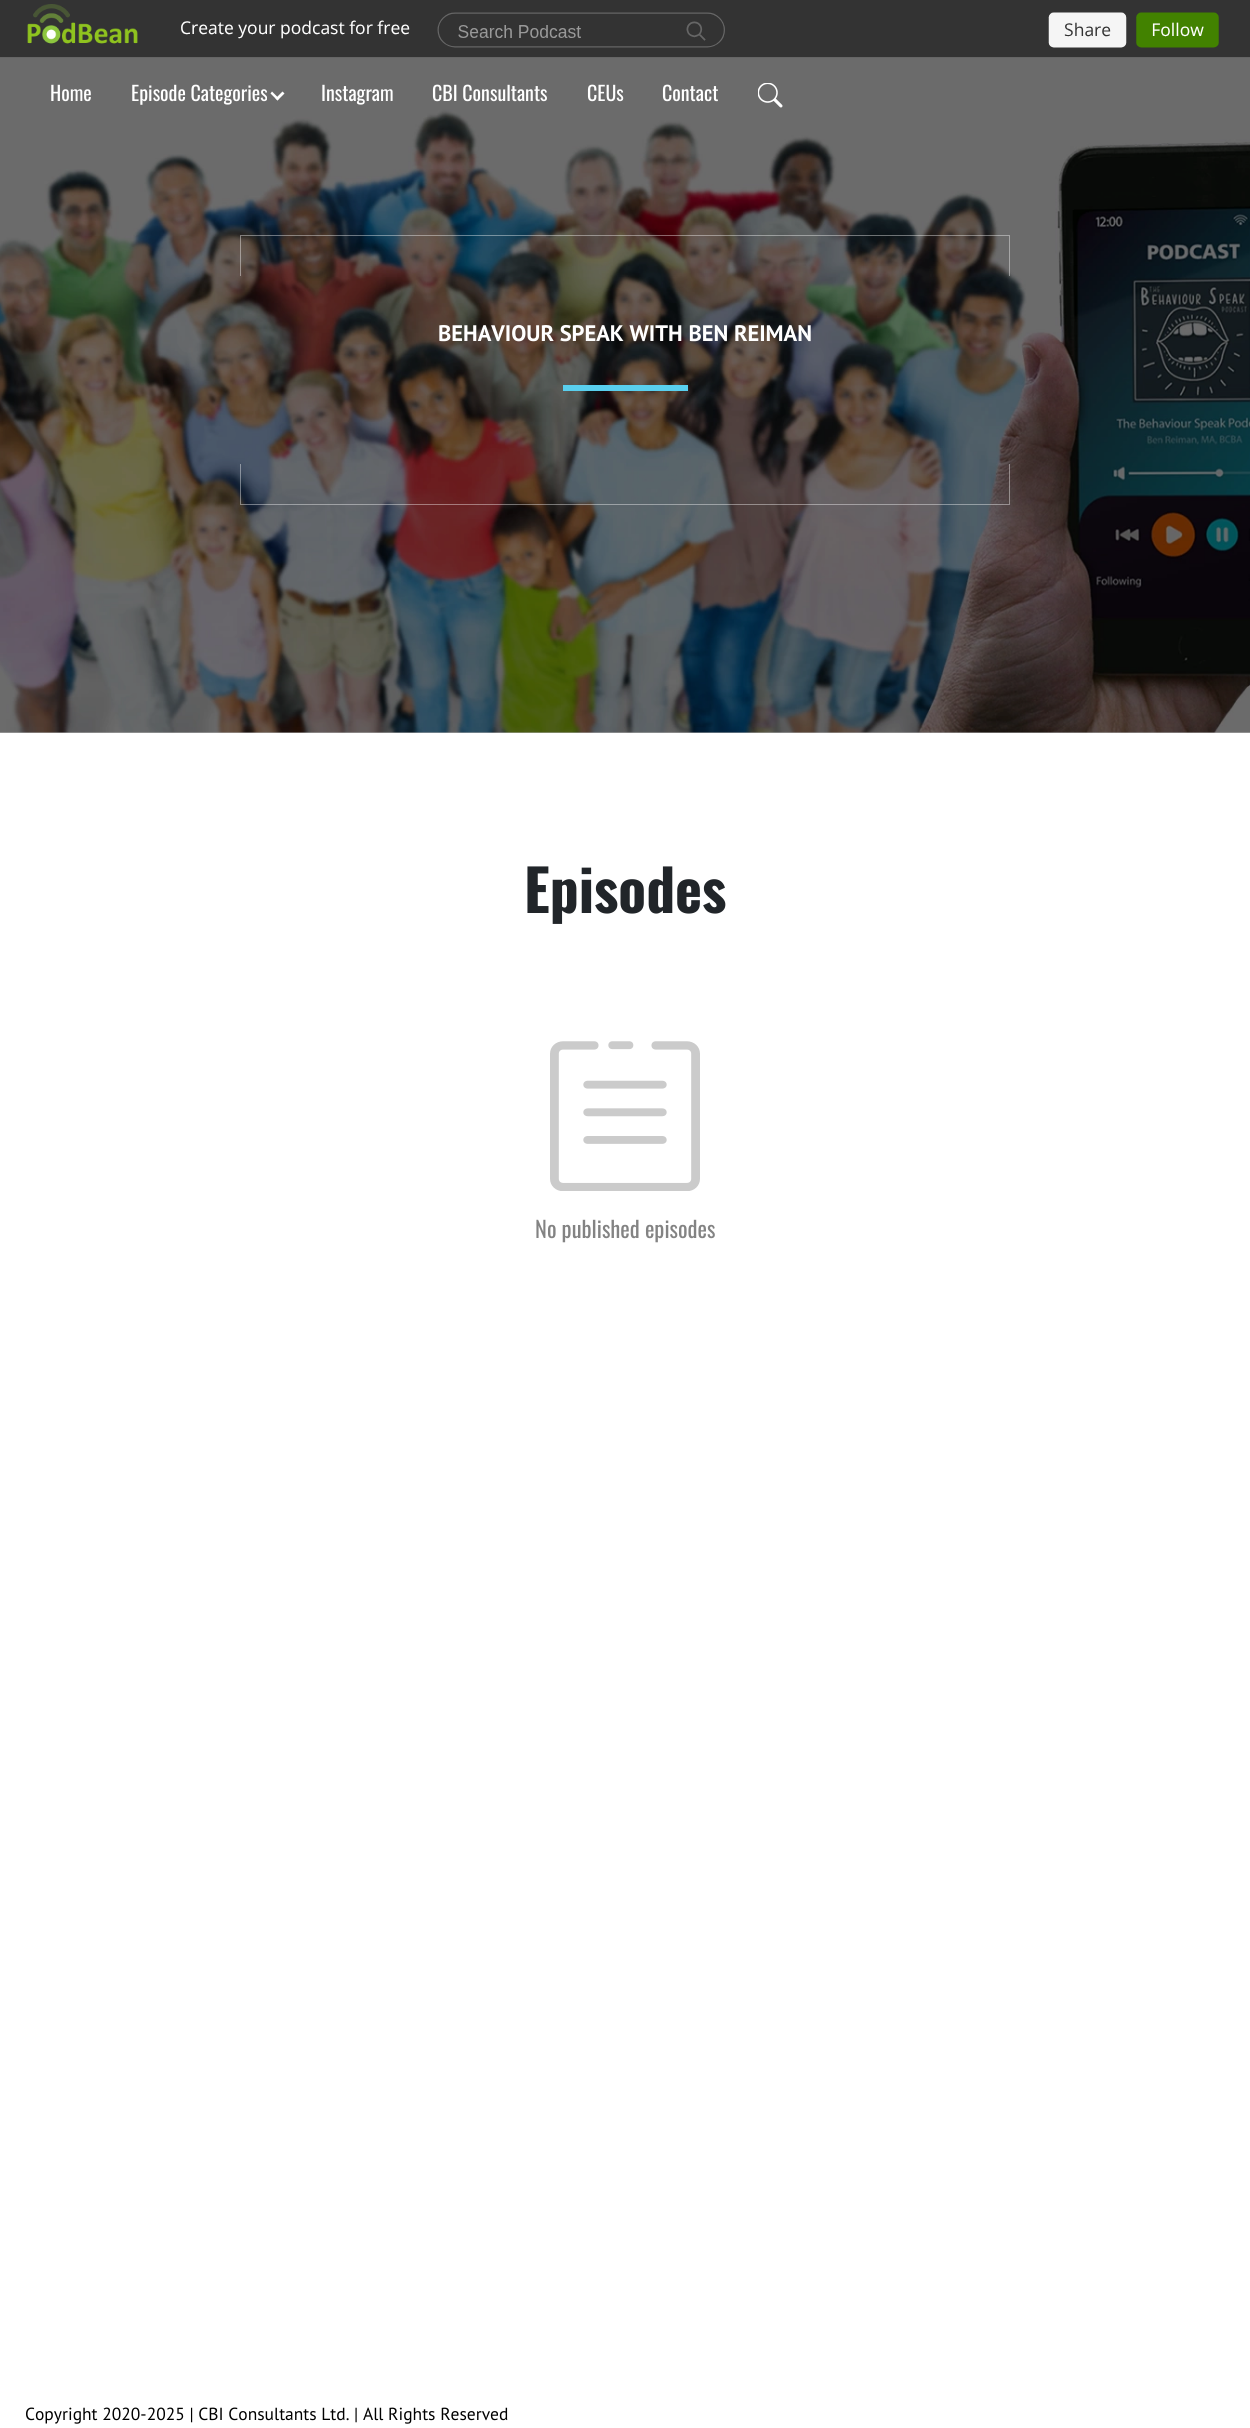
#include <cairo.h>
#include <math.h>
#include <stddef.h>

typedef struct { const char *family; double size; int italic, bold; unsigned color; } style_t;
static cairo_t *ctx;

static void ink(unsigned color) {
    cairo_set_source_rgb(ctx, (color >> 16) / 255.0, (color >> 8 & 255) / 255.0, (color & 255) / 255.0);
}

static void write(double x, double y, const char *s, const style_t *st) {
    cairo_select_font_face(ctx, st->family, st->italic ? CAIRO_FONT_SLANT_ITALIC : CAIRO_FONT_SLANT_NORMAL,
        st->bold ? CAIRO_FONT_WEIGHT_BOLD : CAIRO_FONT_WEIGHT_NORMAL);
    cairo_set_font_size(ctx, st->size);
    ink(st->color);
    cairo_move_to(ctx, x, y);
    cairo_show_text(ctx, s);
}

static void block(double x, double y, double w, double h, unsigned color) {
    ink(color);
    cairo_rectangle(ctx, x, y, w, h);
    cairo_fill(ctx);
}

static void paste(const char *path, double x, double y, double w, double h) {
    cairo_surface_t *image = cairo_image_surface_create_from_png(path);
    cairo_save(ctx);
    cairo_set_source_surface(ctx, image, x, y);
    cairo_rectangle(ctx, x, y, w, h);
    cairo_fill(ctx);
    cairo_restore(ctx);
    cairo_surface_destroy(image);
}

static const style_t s1 = {"Oswald", 20, 0, 0, 0xffffff};
static const style_t s2 = {"PT Sans", 22.5, 0, 1, 0xffffff};
static const style_t s3 = {"Oswald", 57.5, 0, 1, 0x212529};
static const style_t s4 = {"Oswald", 22.5, 0, 0, 0x838383};
static const style_t s5 = {"PT Sans", 17.5, 0, 0, 0x000000};

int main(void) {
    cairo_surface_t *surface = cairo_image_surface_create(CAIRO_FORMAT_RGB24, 1250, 2428);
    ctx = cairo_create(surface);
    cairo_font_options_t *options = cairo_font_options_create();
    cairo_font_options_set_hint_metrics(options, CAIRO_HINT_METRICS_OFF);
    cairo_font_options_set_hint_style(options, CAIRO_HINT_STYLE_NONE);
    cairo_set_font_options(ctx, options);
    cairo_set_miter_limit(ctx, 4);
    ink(0xffffff);
    cairo_paint(ctx);
    block(0, 732, 1250, 1, 0xb3b3b3);
    block(0, 0, 1250, 4, 0x333333);
    paste("pic1.png", 0, 4, 1250, 54);
    paste("pic3.png", 0, 58, 1250, 675);
    write(50, 101, "Home", &s1);
    write(131, 101, "Episode Categories", &s1);
    cairo_new_path(ctx);
    cairo_move_to(ctx, 282.5, 91.5);
    cairo_line_to(ctx, 284.5, 93.5);
    cairo_line_to(ctx, 277.5, 100.5);
    cairo_line_to(ctx, 275.5, 98.5);
    cairo_close_path(ctx);
    cairo_fill(ctx);
    cairo_new_path(ctx);
    cairo_move_to(ctx, 272, 91.5);
    cairo_line_to(ctx, 279, 98.5);
    cairo_line_to(ctx, 277.5, 100.5);
    cairo_line_to(ctx, 270.5, 93.5);
    cairo_close_path(ctx);
    cairo_fill(ctx);
    write(321, 101, "Instagram", &s1);
    write(432, 101, "CBI Consultants", &s1);
    write(587, 101, "CEUs", &s1);
    write(662, 101, "Contact", &s1);
    paste("pic2.png", 758, 83, 25, 25);
    cairo_set_source_rgba(ctx, 1, 1, 1, 0.4);
    cairo_rectangle(ctx, 240, 235, 770, 1);
    cairo_fill(ctx);
    cairo_rectangle(ctx, 240, 504, 770, 1);
    cairo_fill(ctx);
    cairo_rectangle(ctx, 240, 236, 1, 40);
    cairo_fill(ctx);
    cairo_rectangle(ctx, 1009, 236, 1, 40);
    cairo_fill(ctx);
    write(438, 341, "BEHAVIOUR SPEAK WITH BEN REIMAN", &s2);
    block(563, 385, 125, 6, 0x59cfee);
    cairo_set_source_rgba(ctx, 1, 1, 1, 0.4);
    cairo_rectangle(ctx, 240, 464, 1, 40);
    cairo_fill(ctx);
    cairo_rectangle(ctx, 1009, 464, 1, 40);
    cairo_fill(ctx);
    write(524, 913, "Episodes", &s3);
    paste("pic4.png", 550, 1041, 150, 150);
    write(535, 1238, "No published episodes", &s4);
    write(25, 2420, "Copyright 2020-2025 | CBI Consultants Ltd. | All Rights Reserved", &s5);
    cairo_surface_write_to_png(surface, "screenshot.png");
    cairo_font_options_destroy(options);
    cairo_destroy(ctx);
    cairo_surface_destroy(surface);
    return 0;
}
